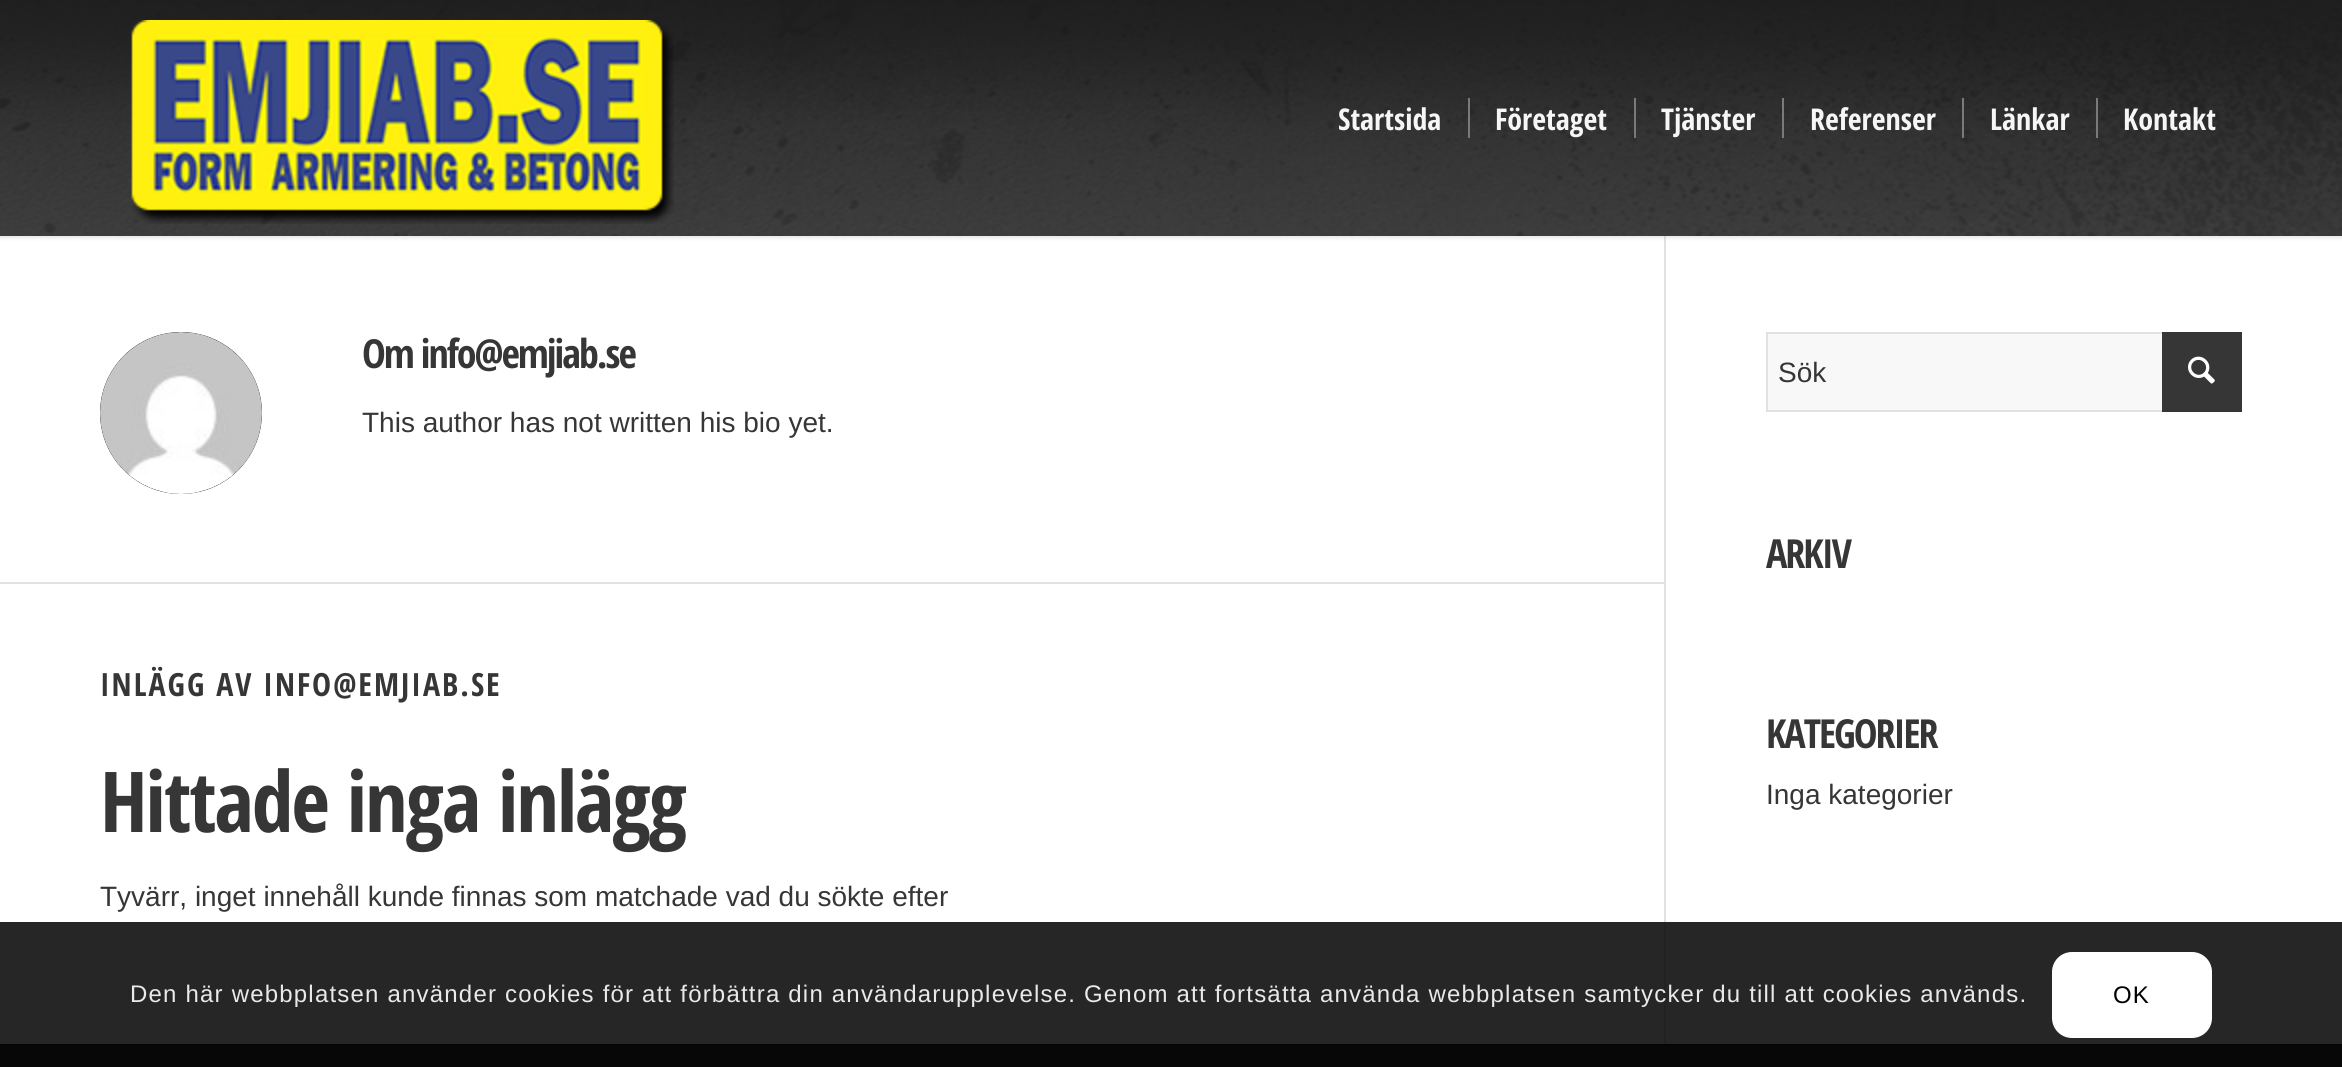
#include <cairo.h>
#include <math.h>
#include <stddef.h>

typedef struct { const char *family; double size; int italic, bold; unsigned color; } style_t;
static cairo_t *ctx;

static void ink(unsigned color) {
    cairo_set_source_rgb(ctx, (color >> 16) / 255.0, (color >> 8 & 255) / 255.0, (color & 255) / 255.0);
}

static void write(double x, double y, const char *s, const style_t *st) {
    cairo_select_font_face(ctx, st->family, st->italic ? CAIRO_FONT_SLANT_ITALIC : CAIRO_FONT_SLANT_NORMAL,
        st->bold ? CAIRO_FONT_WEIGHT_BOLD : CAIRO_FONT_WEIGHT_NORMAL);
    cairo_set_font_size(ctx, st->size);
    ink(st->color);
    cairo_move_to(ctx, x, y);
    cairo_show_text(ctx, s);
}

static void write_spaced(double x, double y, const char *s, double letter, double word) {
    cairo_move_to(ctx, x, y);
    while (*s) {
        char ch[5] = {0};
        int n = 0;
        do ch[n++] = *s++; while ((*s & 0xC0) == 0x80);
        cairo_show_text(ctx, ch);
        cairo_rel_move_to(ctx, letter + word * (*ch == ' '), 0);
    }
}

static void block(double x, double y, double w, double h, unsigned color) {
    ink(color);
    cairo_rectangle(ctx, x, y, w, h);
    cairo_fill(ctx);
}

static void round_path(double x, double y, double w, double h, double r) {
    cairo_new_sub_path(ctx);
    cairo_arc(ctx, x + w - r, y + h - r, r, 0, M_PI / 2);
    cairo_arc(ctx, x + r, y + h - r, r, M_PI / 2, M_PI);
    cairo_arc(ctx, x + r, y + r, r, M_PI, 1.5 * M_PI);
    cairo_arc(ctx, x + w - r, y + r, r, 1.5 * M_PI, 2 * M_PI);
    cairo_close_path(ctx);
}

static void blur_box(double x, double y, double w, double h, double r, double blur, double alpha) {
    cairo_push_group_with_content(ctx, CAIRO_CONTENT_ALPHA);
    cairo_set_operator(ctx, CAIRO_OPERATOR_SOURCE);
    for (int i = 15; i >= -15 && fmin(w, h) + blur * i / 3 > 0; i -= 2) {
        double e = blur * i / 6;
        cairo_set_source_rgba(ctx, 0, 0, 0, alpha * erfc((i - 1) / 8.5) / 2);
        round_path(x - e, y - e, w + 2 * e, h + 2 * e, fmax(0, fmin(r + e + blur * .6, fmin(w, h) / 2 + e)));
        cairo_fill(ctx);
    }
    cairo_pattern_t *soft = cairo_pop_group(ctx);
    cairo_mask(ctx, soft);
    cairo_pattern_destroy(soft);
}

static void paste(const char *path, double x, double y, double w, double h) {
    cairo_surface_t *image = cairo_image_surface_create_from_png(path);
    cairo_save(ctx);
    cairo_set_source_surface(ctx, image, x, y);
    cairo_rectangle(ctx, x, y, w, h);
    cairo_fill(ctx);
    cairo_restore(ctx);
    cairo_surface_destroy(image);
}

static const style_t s1 = {"Open Sans Condensed", 30, 0, 1, 0xf6f6f6};
static const style_t s2 = {"Liberation Sans", 28, 0, 0, 0x363636};

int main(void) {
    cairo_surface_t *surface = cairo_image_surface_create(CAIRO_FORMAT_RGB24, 2342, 1067);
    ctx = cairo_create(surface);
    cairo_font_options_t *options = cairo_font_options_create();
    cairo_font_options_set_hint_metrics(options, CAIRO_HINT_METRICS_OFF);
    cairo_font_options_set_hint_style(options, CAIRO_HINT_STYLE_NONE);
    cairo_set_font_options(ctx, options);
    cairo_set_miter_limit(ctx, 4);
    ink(0xffffff);
    cairo_paint(ctx);
    block(0, 922, 2342, 122, 0x262626);
    block(1664, 232, 2, 690, 0xe1e1e1);
    ink(0x000000);
    blur_box(-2, -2, 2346, 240, 0, 2, 0.1);
    paste("pic1.png", 0, 0, 2342, 236);
    paste("pic2.png", 131, 20, 543, 204);
    write(1338, 130, "Startsida", &s1);
    write(1495, 130, "Företaget", &s1);
    block(1468, 98, 2, 40, 0x7a7a7a);
    write(1661, 130, "Tjänster", &s1);
    block(1634, 98, 2, 40, 0x7a7a7a);
    write(1810, 130, "Referenser", &s1);
    block(1782, 98, 2, 40, 0x7a7a7a);
    write(1990, 130, "Länkar", &s1);
    block(1962, 98, 2, 40, 0x7a7a7a);
    write(2123, 130, "Kontakt", &s1);
    block(2096, 98, 2, 40, 0x7a7a7a);
    block(1664, 922, 2, 122, 0x222222);
    ink(0x363636);
    cairo_new_path(ctx);
    cairo_arc(ctx, 181, 413, 81, 0, 2 * M_PI);
    cairo_fill(ctx);
    paste("pic3.png", 100, 332, 162, 162);
    cairo_set_font_size(ctx, 40);
    write_spaced(362, 368, "Om info@emjiab.se", -2, 0);
    write(362, 432, "This author has not written his bio yet.", &s2);
    block(0, 582, 1664, 2, 0xe1e1e1);
    cairo_select_font_face(ctx, "Open Sans Condensed", CAIRO_FONT_SLANT_NORMAL, CAIRO_FONT_WEIGHT_BOLD);
    cairo_set_font_size(ctx, 32);
    ink(0x363636);
    write_spaced(100, 696, "INLÄGG AV INFO@EMJIAB.SE", 2, 0);
    cairo_set_font_size(ctx, 84);
    write_spaced(100, 832, "Hittade inga inlägg", -2, 0);
    write(100, 906, "Tyvärr, inget innehåll kunde finnas som matchade vad du sökte efter", &s2);
    block(1768, 334, 394, 76, 0xf8f8f8);
    cairo_rectangle(ctx, 1767, 333, 474, 78);
    ink(0xe1e1e1);
    cairo_stroke(ctx);
    write(1778, 382, "Sök", &s2);
    block(2162, 332, 80, 80, 0x363636);
    paste("pic4.png", 2188, 356, 27, 28);
    cairo_select_font_face(ctx, "Open Sans Condensed", CAIRO_FONT_SLANT_NORMAL, CAIRO_FONT_WEIGHT_BOLD);
    cairo_set_font_size(ctx, 40);
    write_spaced(1766, 568, "ARKIV", -2, 0);
    write_spaced(1766, 748, "KATEGORIER", -2, 0);
    write(1766, 804, "Inga kategorier", &s2);
    block(0, 1046, 2342, 21, 0x070707);
    block(0, 1044, 2342, 2, 0x050505);
    cairo_set_font_size(ctx, 24);
    ink(0xe9e9e9);
    write_spaced(130, 1002, "Den här webbplatsen använder cookies för att förbättra din användarupplevelse. Genom att fortsätta använda webbplatsen samtycker du till att cookies används.", 1.2, 0);
    ink(0xffffff);
    round_path(2052, 952, 160, 86, 20);
    cairo_fill(ctx);
    ink(0x000000);
    write_spaced(2113, 1003, "OK", 1.2, 0);
    cairo_surface_write_to_png(surface, "screenshot.png");
    cairo_font_options_destroy(options);
    cairo_destroy(ctx);
    cairo_surface_destroy(surface);
    return 0;
}
